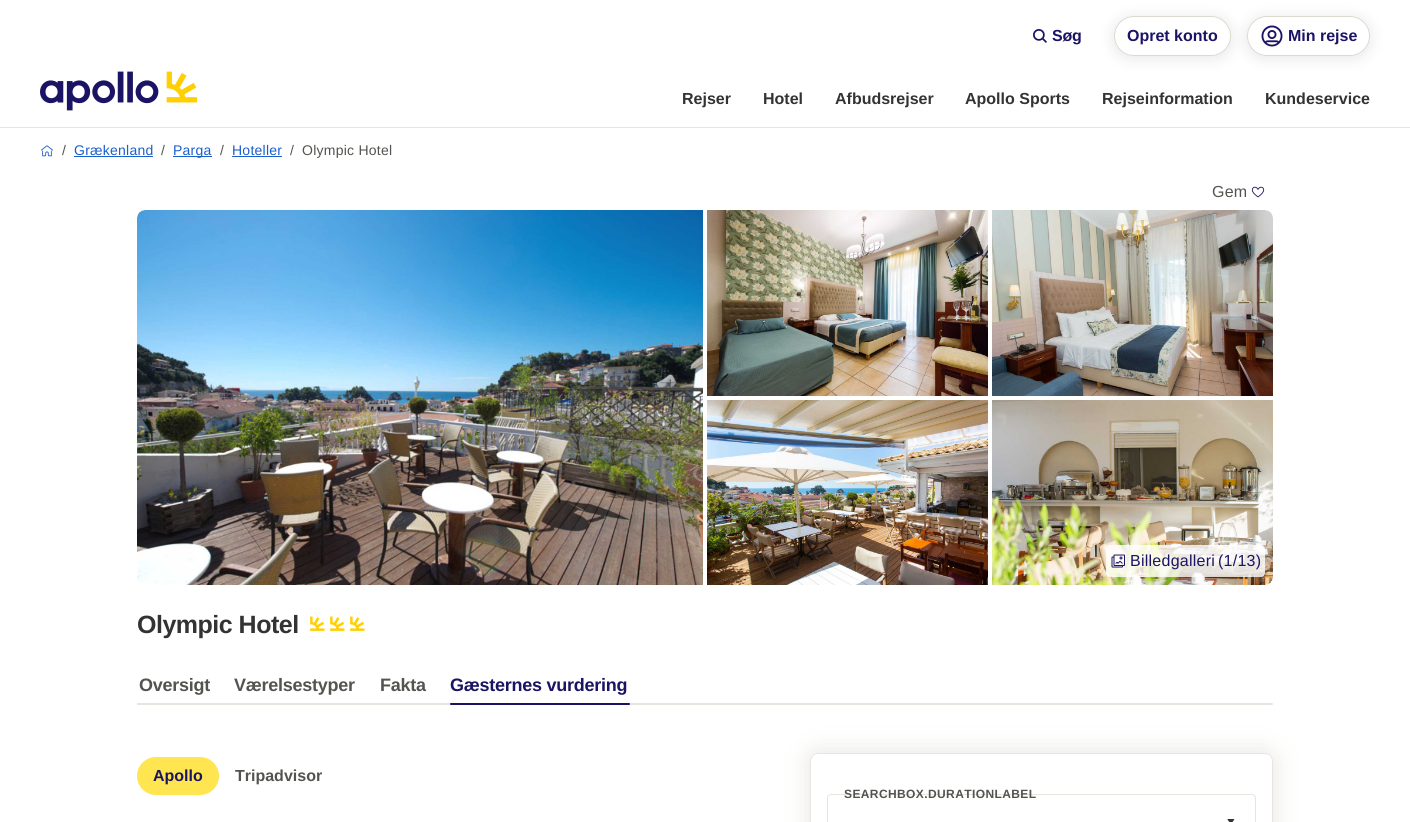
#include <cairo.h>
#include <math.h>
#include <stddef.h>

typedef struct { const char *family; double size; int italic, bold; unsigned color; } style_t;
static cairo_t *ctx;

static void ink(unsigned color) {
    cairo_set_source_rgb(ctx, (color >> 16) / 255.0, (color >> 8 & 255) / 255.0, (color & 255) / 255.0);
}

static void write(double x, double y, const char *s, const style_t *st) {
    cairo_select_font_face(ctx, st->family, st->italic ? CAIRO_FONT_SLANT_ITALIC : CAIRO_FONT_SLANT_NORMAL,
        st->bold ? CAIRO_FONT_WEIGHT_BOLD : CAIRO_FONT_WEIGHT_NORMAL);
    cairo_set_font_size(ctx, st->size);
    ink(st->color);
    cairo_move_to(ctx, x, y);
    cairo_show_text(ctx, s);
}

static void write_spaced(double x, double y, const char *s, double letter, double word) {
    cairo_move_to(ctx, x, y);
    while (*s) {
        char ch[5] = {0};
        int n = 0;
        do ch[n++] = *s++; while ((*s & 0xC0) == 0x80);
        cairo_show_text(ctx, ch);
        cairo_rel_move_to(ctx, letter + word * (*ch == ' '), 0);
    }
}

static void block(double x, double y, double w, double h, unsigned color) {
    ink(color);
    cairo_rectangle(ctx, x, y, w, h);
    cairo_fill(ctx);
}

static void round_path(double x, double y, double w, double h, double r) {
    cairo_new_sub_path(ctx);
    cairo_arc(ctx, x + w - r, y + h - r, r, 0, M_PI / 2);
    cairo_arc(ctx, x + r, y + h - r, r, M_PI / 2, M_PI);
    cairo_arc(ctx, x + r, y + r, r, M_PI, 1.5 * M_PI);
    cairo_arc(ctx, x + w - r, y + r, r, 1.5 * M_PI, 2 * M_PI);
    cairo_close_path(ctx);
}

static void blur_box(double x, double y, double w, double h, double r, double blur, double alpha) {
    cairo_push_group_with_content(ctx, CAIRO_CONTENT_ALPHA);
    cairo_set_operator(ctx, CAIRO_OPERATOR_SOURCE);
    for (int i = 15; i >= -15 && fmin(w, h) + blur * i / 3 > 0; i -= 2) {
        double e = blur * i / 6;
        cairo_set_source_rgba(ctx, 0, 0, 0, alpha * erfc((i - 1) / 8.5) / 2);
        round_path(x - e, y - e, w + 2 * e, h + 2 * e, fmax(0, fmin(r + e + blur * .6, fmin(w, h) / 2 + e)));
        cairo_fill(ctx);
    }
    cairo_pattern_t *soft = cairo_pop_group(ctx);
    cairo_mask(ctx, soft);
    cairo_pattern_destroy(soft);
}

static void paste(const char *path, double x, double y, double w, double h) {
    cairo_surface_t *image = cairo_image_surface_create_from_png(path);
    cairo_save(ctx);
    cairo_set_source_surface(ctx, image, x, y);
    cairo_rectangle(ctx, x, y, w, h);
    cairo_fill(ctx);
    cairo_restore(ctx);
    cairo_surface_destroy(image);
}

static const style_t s1 = {"Liberation Sans", 16, 0, 1, 0x1b1464};
static const style_t s2 = {"Liberation Sans", 16, 0, 1, 0x333333};
static const style_t s3 = {"Liberation Sans", 16, 0, 1, 0x53534f};

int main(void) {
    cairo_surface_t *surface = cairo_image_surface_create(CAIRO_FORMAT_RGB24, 1410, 822);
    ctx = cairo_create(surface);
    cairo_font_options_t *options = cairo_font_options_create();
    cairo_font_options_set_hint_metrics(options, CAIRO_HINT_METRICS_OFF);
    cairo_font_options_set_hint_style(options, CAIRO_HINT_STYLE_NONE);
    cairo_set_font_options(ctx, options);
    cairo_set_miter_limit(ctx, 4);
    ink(0xffffff);
    cairo_paint(ctx);
    paste("pic1.png", 40, 71, 157, 40);
    paste("pic2.png", 1033, 29, 14, 14);
    cairo_select_font_face(ctx, "Liberation Sans", CAIRO_FONT_SLANT_NORMAL, CAIRO_FONT_WEIGHT_BOLD);
    cairo_set_font_size(ctx, 16);
    ink(0x1b1464);
    write_spaced(1052, 41, "Søg", -0.25, 0);
    cairo_save(ctx);
    cairo_set_fill_rule(ctx, CAIRO_FILL_RULE_EVEN_ODD);
    cairo_new_path(ctx);
    cairo_move_to(ctx, 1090, 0);
    cairo_line_to(ctx, 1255, 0);
    cairo_line_to(ctx, 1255, 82);
    cairo_line_to(ctx, 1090, 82);
    cairo_close_path(ctx);
    cairo_move_to(ctx, 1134, 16);
    cairo_line_to(ctx, 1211, 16);
    cairo_curve_to(ctx, 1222, 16, 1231, 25, 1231, 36);
    cairo_curve_to(ctx, 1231, 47, 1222, 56, 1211, 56);
    cairo_line_to(ctx, 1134, 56);
    cairo_curve_to(ctx, 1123, 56, 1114, 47, 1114, 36);
    cairo_curve_to(ctx, 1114, 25, 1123, 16, 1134, 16);
    cairo_close_path(ctx);
    cairo_clip(ctx);
    ink(0x000000);
    blur_box(1114, 18, 117, 40, 20, 7.5, 0.1);
    cairo_restore(ctx);
    round_path(1114.5, 16.5, 116, 39, 19.5);
    ink(0xdbd9d0);
    cairo_set_line_width(ctx, 1);
    cairo_stroke(ctx);
    write(1127, 41, "Opret konto", &s1);
    cairo_save(ctx);
    cairo_set_fill_rule(ctx, CAIRO_FILL_RULE_EVEN_ODD);
    cairo_new_path(ctx);
    cairo_move_to(ctx, 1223, 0);
    cairo_line_to(ctx, 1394, 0);
    cairo_line_to(ctx, 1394, 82);
    cairo_line_to(ctx, 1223, 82);
    cairo_close_path(ctx);
    cairo_move_to(ctx, 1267, 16);
    cairo_line_to(ctx, 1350, 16);
    cairo_curve_to(ctx, 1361, 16, 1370, 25, 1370, 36);
    cairo_curve_to(ctx, 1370, 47, 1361, 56, 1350, 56);
    cairo_line_to(ctx, 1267, 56);
    cairo_curve_to(ctx, 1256, 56, 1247, 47, 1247, 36);
    cairo_curve_to(ctx, 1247, 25, 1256, 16, 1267, 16);
    cairo_close_path(ctx);
    cairo_clip(ctx);
    ink(0x000000);
    blur_box(1247, 18, 123, 40, 20, 7.5, 0.1);
    cairo_restore(ctx);
    round_path(1247.5, 16.5, 122, 39, 19.5);
    ink(0xdbd9d0);
    cairo_stroke(ctx);
    paste("pic3.png", 1261, 25, 22, 22);
    write(1288, 41, "Min rejse", &s1);
    write(682, 104, "Rejser", &s2);
    write(763, 104, "Hotel", &s2);
    write(835, 104, "Afbudsrejser", &s2);
    write(965, 104, "Apollo Sports", &s2);
    write(1102, 104, "Rejseinformation", &s2);
    write(1265, 104, "Kundeservice", &s2);
    block(0, 127, 1410, 1, 0xe6e5df);
    paste("pic4.png", 40, 145, 14, 12);
    cairo_select_font_face(ctx, "Liberation Sans", CAIRO_FONT_SLANT_NORMAL, CAIRO_FONT_WEIGHT_NORMAL);
    cairo_set_font_size(ctx, 14);
    ink(0x53534f);
    write_spaced(62, 155, "/", 0.25, 0);
    ink(0x1b5fcb);
    write_spaced(74, 155, "Grækenland", 0.25, 0);
    block(74, 156, 79, 1, 0x1b5fcb);
    ink(0x53534f);
    write_spaced(161, 155, "/", 0.25, 0);
    block(173, 156, 39, 1, 0x1b5fcb);
    write_spaced(173, 155, "Parga", 0.25, 0);
    ink(0x53534f);
    write_spaced(220, 155, "/", 0.25, 0);
    ink(0x1b5fcb);
    write_spaced(232, 155, "Hoteller", 0.25, 0);
    block(232, 156, 50, 1, 0x1b5fcb);
    ink(0x53534f);
    write_spaced(290, 155, "/", 0.25, 0);
    write_spaced(302, 155, "Olympic Hotel", 0.25, 0);
    cairo_set_font_size(ctx, 16);
    write_spaced(1212, 197, "Gem", 0.25, 0);
    paste("pic5.png", 1251, 186, 14, 12);
    paste("pic6.png", 137, 210, 566, 375);
    paste("pic7.png", 707, 210, 281, 186);
    paste("pic8.png", 992, 210, 281, 186);
    paste("pic9.png", 707, 400, 281, 185);
    paste("pic10.png", 992, 400, 281, 185);
    cairo_set_source_rgba(ctx, 1, 1, 1, 0.8);
    round_path(1106, 545, 159, 32, 4);
    cairo_fill(ctx);
    paste("pic11.png", 1111, 554, 14, 14);
    ink(0x1b1464);
    write_spaced(1130, 566, "Billedgalleri", 0.25, 0);
    write_spaced(1218, 566, "(1/13)", 0.25, 0);
    cairo_select_font_face(ctx, "Liberation Sans", CAIRO_FONT_SLANT_NORMAL, CAIRO_FONT_WEIGHT_BOLD);
    cairo_set_font_size(ctx, 25);
    ink(0x333333);
    write_spaced(137, 633, "Olympic Hotel", -0.5, 0);
    paste("pic12.png", 310, 616, 15, 15);
    paste("pic12.png", 330, 616, 15, 15);
    paste("pic12.png", 350, 616, 15, 15);
    cairo_set_font_size(ctx, 18);
    ink(0x53534f);
    write_spaced(139, 691, "Oversigt", -0.25, 0);
    ink(0xe6e5df);
    cairo_new_path(ctx);
    cairo_move_to(ctx, 138, 703);
    cairo_line_to(ctx, 222, 703);
    cairo_line_to(ctx, 222, 705);
    cairo_line_to(ctx, 138, 705);
    cairo_curve_to(ctx, 137.5, 705, 137, 704.5, 137, 704);
    cairo_curve_to(ctx, 137, 703.5, 137.5, 703, 138, 703);
    cairo_close_path(ctx);
    cairo_fill(ctx);
    ink(0x53534f);
    write_spaced(234, 691, "Værelsestyper", -0.25, 0);
    write_spaced(380, 691, "Fakta", -0.25, 0);
    ink(0x1b1464);
    write_spaced(450, 691, "Gæsternes vurdering", -0.25, 0);
    ink(0xe6e5df);
    round_path(145, 703, 1128, 2, 1);
    cairo_fill(ctx);
    ink(0x1b1464);
    round_path(450, 703, 180, 2, 1);
    cairo_fill(ctx);
    ink(0xffe650);
    round_path(138, 758, 80, 36, 18);
    cairo_fill_preserve(ctx);
    cairo_set_line_width(ctx, 2);
    cairo_stroke(ctx);
    write(153, 781, "Apollo", &s1);
    write(235, 781, "Tripadvisor", &s3);
    cairo_save(ctx);
    cairo_set_fill_rule(ctx, CAIRO_FILL_RULE_EVEN_ODD);
    cairo_new_path(ctx);
    cairo_move_to(ctx, 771, 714);
    cairo_line_to(ctx, 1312, 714);
    cairo_line_to(ctx, 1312, 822);
    cairo_line_to(ctx, 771, 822);
    cairo_close_path(ctx);
    cairo_move_to(ctx, 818, 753);
    cairo_line_to(ctx, 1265, 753);
    cairo_curve_to(ctx, 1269.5, 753, 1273, 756.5, 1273, 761);
    cairo_line_to(ctx, 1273, 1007);
    cairo_curve_to(ctx, 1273, 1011.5, 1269.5, 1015, 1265, 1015);
    cairo_line_to(ctx, 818, 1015);
    cairo_curve_to(ctx, 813.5, 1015, 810, 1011.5, 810, 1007);
    cairo_line_to(ctx, 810, 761);
    cairo_curve_to(ctx, 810, 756.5, 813.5, 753, 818, 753);
    cairo_close_path(ctx);
    cairo_clip(ctx);
    ink(0xe6e5df);
    blur_box(810, 753, 463, 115, 8, 12.5, 1);
    cairo_restore(ctx);
    round_path(810.5, 753.5, 462, 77, 7.5);
    ink(0xe6e5df);
    cairo_set_line_width(ctx, 1);
    cairo_stroke(ctx);
    round_path(827.5, 794.5, 428, 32, 3.5);
    cairo_stroke(ctx);
    cairo_set_font_size(ctx, 12);
    ink(0x53534f);
    write_spaced(844, 798, "SEARCHBOX.DURATIONLABEL", 0.4, 0);
    ink(0x333333);
    cairo_new_path(ctx);
    cairo_move_to(ctx, 1231, 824.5);
    cairo_line_to(ctx, 1234.5, 819);
    cairo_line_to(ctx, 1227.5, 819);
    cairo_line_to(ctx, 1227.5, 819.5);
    cairo_close_path(ctx);
    cairo_fill(ctx);
    cairo_surface_write_to_png(surface, "screenshot.png");
    cairo_font_options_destroy(options);
    cairo_destroy(ctx);
    cairo_surface_destroy(surface);
    return 0;
}
